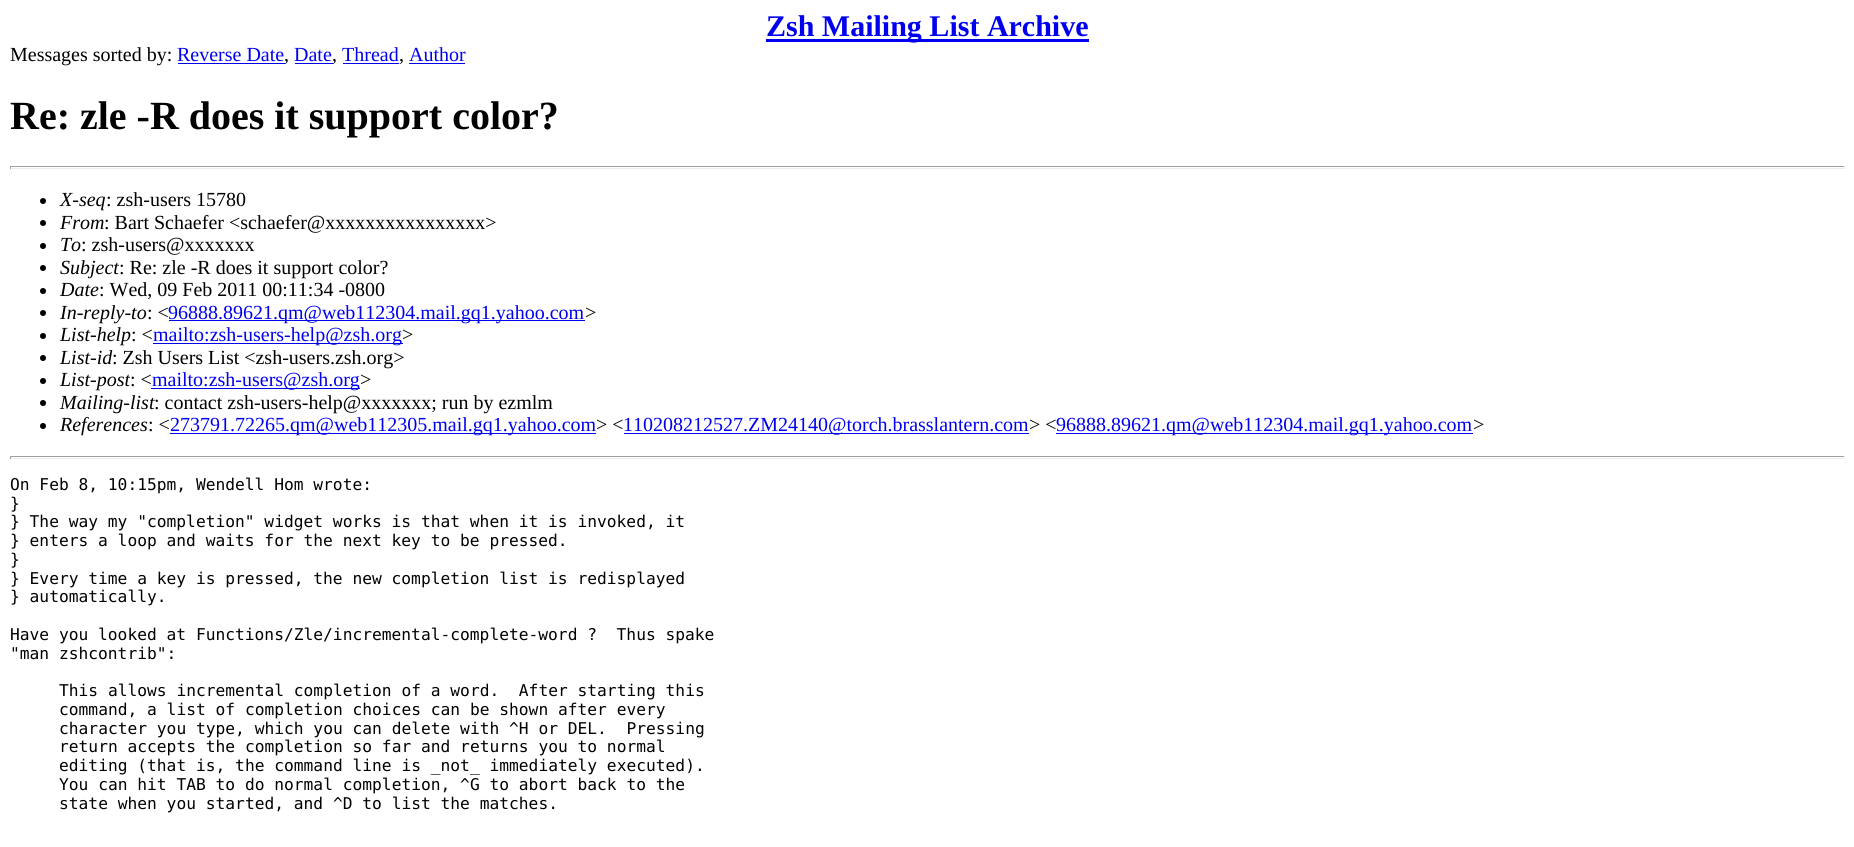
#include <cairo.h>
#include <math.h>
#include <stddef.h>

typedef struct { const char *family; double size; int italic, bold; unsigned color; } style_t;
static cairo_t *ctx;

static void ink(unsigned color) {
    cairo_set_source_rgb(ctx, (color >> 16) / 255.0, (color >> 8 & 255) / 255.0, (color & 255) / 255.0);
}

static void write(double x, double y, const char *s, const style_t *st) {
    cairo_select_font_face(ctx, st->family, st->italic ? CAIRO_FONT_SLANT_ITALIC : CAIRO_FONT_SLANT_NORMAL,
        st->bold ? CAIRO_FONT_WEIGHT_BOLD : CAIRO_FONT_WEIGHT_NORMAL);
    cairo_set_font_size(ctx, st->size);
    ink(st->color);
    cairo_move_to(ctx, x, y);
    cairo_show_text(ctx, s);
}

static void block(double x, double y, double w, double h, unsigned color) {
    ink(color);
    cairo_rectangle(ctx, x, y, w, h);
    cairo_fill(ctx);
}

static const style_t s1 = {"Liberation Serif", 30, 0, 1, 0x0000ee};
static const style_t s2 = {"Liberation Serif", 20, 0, 0, 0x000000};
static const style_t s3 = {"Liberation Serif", 20, 0, 0, 0x0000ee};
static const style_t s4 = {"Liberation Serif", 40, 0, 1, 0x000000};
static const style_t s5 = {"Liberation Serif", 20, 1, 0, 0x000000};
static const style_t s6 = {"DejaVu Sans Mono", 16.25, 0, 0, 0x000000};

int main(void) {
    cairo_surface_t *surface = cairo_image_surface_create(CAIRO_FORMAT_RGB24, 1854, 847);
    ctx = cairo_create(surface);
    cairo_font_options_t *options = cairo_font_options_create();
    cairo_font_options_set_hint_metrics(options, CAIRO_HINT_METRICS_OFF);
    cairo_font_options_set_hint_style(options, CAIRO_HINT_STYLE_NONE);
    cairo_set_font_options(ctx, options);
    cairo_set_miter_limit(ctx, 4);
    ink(0xffffff);
    cairo_paint(ctx);
    block(766, 39, 323, 3, 0x0000ee);
    write(766, 36, "Zsh Mailing List Archive", &s1);
    write(10, 61, "Messages sorted by:", &s2);
    write(177, 61, "Reverse Date", &s3);
    block(178, 63, 107, 1, 0x0000ee);
    write(284, 61, ",", &s2);
    write(294, 61, "Date", &s3);
    block(295, 63, 38, 1, 0x0000ee);
    write(332, 61, ",", &s2);
    write(342, 61, "Thread", &s3);
    block(343, 63, 56, 1, 0x0000ee);
    write(399, 61, ",", &s2);
    write(409, 61, "Author", &s3);
    block(409, 63, 56, 1, 0x0000ee);
    write(10, 129, "Re: zle -R does it support color?", &s4);
    block(10, 166, 1835, 1, 0x9f9f9f);
    block(1844, 166, 1, 3, 0xeeeeee);
    block(10, 168, 1835, 1, 0xeeeeee);
    block(10, 166, 1, 3, 0x9f9f9f);
    ink(0x000000);
    cairo_new_path(ctx);
    cairo_arc(ctx, 43, 201, 3, 0, 2 * M_PI);
    cairo_fill(ctx);
    write(60, 206, "X-seq", &s5);
    write(106, 206, ": zsh-users 15780", &s2);
    cairo_new_path(ctx);
    cairo_arc(ctx, 43, 223, 3, 0, 2 * M_PI);
    cairo_fill(ctx);
    write(60, 229, "From", &s5);
    write(104, 229, ": Bart Schaefer <schaefer@xxxxxxxxxxxxxxxx>", &s2);
    cairo_new_path(ctx);
    cairo_arc(ctx, 43, 246, 3, 0, 2 * M_PI);
    cairo_fill(ctx);
    write(60, 251, "To", &s5);
    write(81, 251, ": zsh-users@xxxxxxx", &s2);
    cairo_new_path(ctx);
    cairo_arc(ctx, 43, 268, 3, 0, 2 * M_PI);
    cairo_fill(ctx);
    write(60, 274, "Subject", &s5);
    write(119, 274, ": Re: zle -R does it support color?", &s2);
    cairo_new_path(ctx);
    cairo_arc(ctx, 43, 291, 3, 0, 2 * M_PI);
    cairo_fill(ctx);
    write(60, 296, "Date", &s5);
    write(99, 296, ": Wed, 09 Feb 2011 00:11:34 -0800", &s2);
    cairo_new_path(ctx);
    cairo_arc(ctx, 43, 313, 3, 0, 2 * M_PI);
    cairo_fill(ctx);
    write(60, 319, "In-reply-to", &s5);
    write(147, 319, ": <", &s2);
    block(169, 320, 416, 1, 0x0000ee);
    write(168, 319, "96888.89621.qm@web112304.mail.gq1.yahoo.com", &s3);
    write(585, 319, ">", &s2);
    cairo_new_path(ctx);
    cairo_arc(ctx, 43, 336, 3, 0, 2 * M_PI);
    cairo_fill(ctx);
    write(60, 341, "List-help", &s5);
    write(131, 341, ": <", &s2);
    block(153, 343, 250, 1, 0x0000ee);
    write(153, 341, "mailto:zsh-users-help@zsh.org", &s3);
    write(402, 341, ">", &s2);
    cairo_new_path(ctx);
    cairo_arc(ctx, 43, 358, 3, 0, 2 * M_PI);
    cairo_fill(ctx);
    write(60, 364, "List-id", &s5);
    write(112, 364, ": Zsh Users List <zsh-users.zsh.org>", &s2);
    cairo_new_path(ctx);
    cairo_arc(ctx, 43, 381, 3, 0, 2 * M_PI);
    cairo_fill(ctx);
    write(60, 386, "List-post", &s5);
    write(130, 386, ": <", &s2);
    block(151, 388, 209, 1, 0x0000ee);
    write(152, 386, "mailto:zsh-users@zsh.org", &s3);
    write(360, 386, ">", &s2);
    cairo_new_path(ctx);
    cairo_arc(ctx, 43, 403, 3, 0, 2 * M_PI);
    cairo_fill(ctx);
    write(60, 409, "Mailing-list", &s5);
    write(154, 409, ": contact zsh-users-help@xxxxxxx; run by ezmlm", &s2);
    cairo_new_path(ctx);
    cairo_arc(ctx, 43, 426, 3, 0, 2 * M_PI);
    cairo_fill(ctx);
    write(60, 431, "References", &s5);
    write(148, 431, ": <", &s2);
    block(170, 433, 426, 1, 0x0000ee);
    write(170, 431, "273791.72265.qm@web112305.mail.gq1.yahoo.com", &s3);
    write(596, 431, "> <", &s2);
    block(624, 433, 405, 1, 0x0000ee);
    write(623, 431, "110208212527.ZM24140@torch.brasslantern.com", &s3);
    write(1029, 431, "> <", &s2);
    block(1056, 433, 417, 1, 0x0000ee);
    write(1056, 431, "96888.89621.qm@web112304.mail.gq1.yahoo.com", &s3);
    write(1473, 431, ">", &s2);
    block(10, 456, 1835, 1, 0x9f9f9f);
    block(1844, 456, 1, 3, 0xeeeeee);
    block(10, 458, 1835, 1, 0xeeeeee);
    block(10, 456, 1, 3, 0x9f9f9f);
    write(10, 490, "On Feb 8, 10:15pm, Wendell Hom wrote:", &s6);
    write(10, 509, "}", &s6);
    write(10, 527, "} The way my \"completion\" widget works is that when it is invoked, it", &s6);
    write(10, 546, "} enters a loop and waits for the next key to be pressed.", &s6);
    write(10, 565, "}", &s6);
    write(10, 584, "} Every time a key is pressed, the new completion list is redisplayed", &s6);
    write(10, 602, "} automatically.", &s6);
    write(10, 640, "Have you looked at Functions/Zle/incremental-complete-word ?  Thus spake", &s6);
    write(10, 659, "\"man zshcontrib\":", &s6);
    write(59, 696, "This allows incremental completion of a word.  After starting this", &s6);
    write(59, 715, "command, a list of completion choices can be shown after every", &s6);
    write(59, 734, "character you type, which you can delete with ^H or DEL.  Pressing", &s6);
    write(59, 752, "return accepts the completion so far and returns you to normal", &s6);
    write(59, 771, "editing (that is, the command line is _not_ immediately executed).", &s6);
    write(59, 790, "You can hit TAB to do normal completion, ^G to abort back to the", &s6);
    write(59, 809, "state when you started, and ^D to list the matches.", &s6);
    cairo_surface_write_to_png(surface, "screenshot.png");
    cairo_font_options_destroy(options);
    cairo_destroy(ctx);
    cairo_surface_destroy(surface);
    return 0;
}
